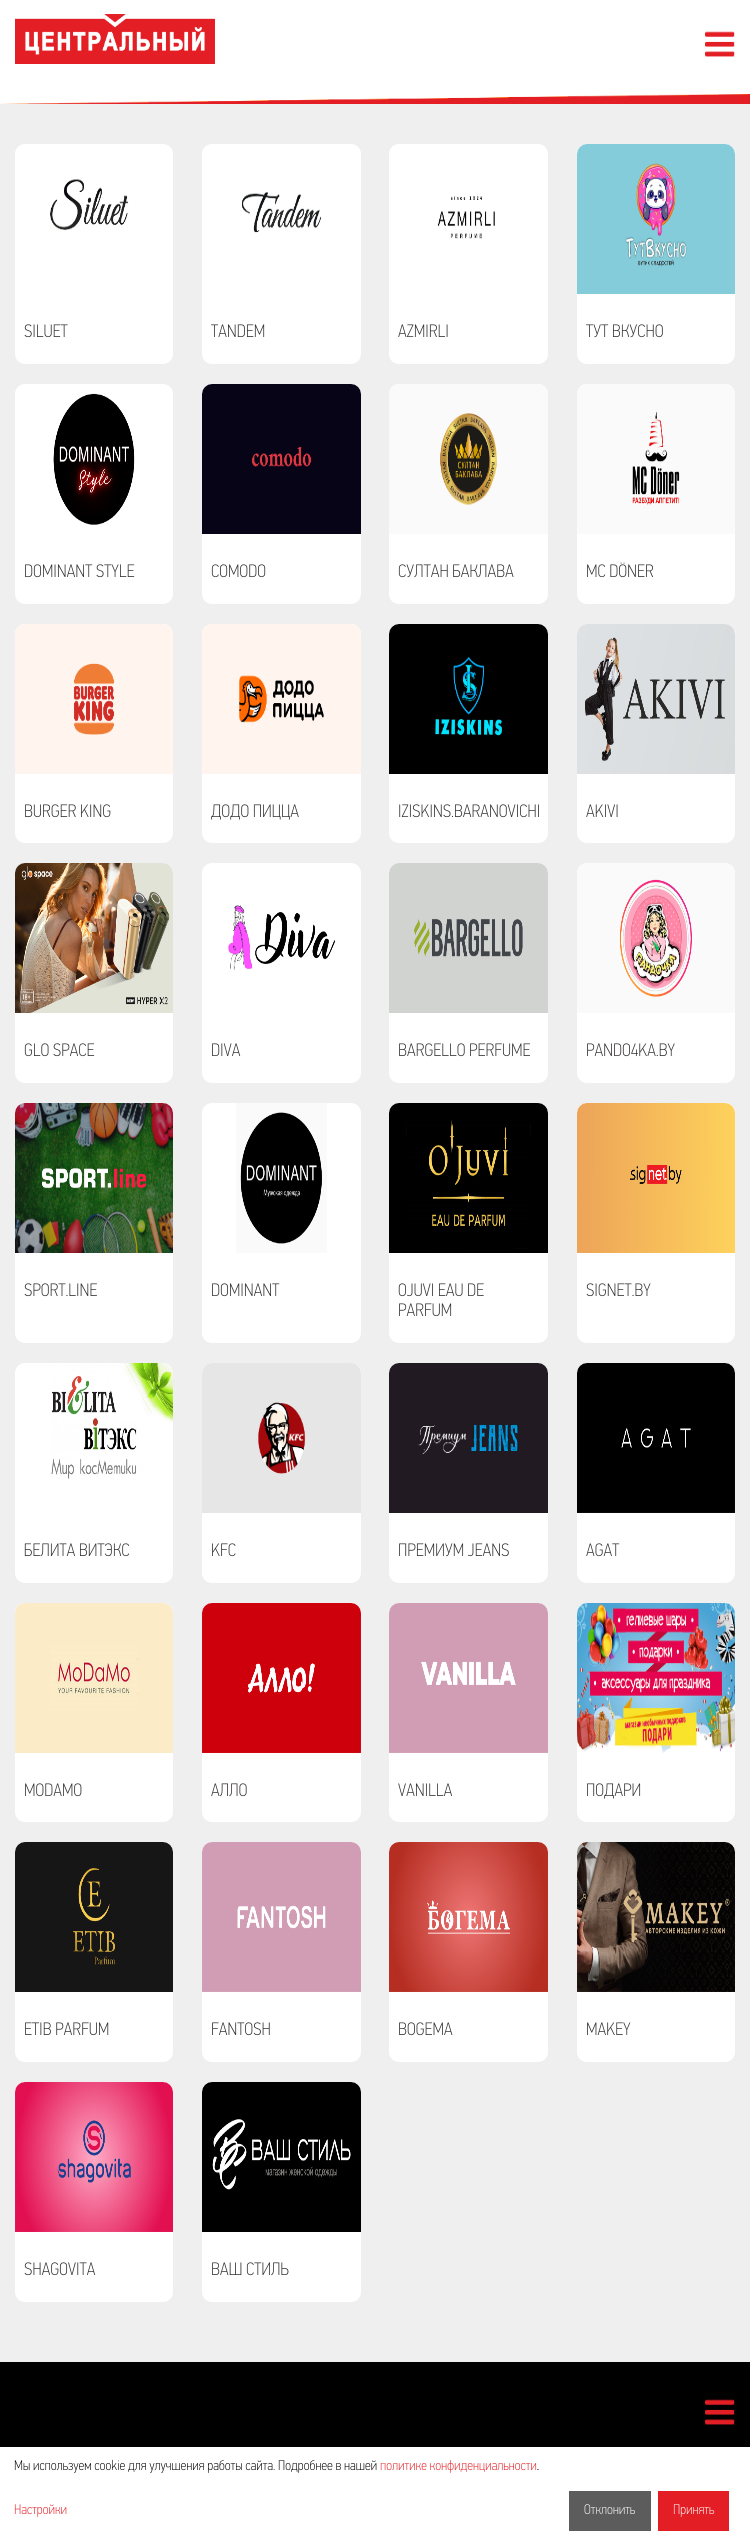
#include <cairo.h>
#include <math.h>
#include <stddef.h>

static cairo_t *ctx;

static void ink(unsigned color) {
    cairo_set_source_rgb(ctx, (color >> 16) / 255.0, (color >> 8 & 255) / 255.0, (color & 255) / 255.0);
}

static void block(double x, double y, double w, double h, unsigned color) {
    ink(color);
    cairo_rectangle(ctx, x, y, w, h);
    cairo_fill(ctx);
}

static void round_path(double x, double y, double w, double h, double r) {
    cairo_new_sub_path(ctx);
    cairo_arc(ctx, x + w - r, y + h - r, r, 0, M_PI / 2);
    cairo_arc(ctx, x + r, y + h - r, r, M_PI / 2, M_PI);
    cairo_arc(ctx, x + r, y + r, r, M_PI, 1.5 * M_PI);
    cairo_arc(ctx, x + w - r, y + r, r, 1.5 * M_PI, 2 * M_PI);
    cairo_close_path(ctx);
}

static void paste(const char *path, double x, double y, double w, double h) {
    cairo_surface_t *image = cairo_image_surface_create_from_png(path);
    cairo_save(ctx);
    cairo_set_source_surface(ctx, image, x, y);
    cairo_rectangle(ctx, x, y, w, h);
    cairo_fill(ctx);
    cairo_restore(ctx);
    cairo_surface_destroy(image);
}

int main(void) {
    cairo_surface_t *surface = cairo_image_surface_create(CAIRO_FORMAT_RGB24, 750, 2545);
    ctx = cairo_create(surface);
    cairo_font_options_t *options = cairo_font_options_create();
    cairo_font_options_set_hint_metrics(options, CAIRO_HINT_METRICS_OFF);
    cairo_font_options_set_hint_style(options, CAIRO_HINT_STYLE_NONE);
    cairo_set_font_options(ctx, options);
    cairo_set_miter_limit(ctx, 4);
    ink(0xefefef);
    cairo_paint(ctx);
    block(0, 0, 750, 94, 0xffffff);
    paste("pic1.png", 0, 94, 750, 10);
    paste("pic2.png", 15, 14, 200, 50);
    paste("pic3.png", 705, 31, 30, 26);
    round_path(15, 144, 158, 220, 10);
    cairo_fill(ctx);
    paste("pic4.png", 50, 179, 79, 52);
    paste("pic5.png", 24, 324, 44, 14);
    round_path(202, 144, 159, 220, 10);
    cairo_fill(ctx);
    paste("pic6.png", 241, 192, 81, 41);
    paste("pic7.png", 211, 324, 54, 13);
    round_path(389, 144, 159, 220, 10);
    cairo_fill(ctx);
    paste("pic8.png", 437, 195, 58, 44);
    paste("pic9.png", 398, 324, 50, 13);
    round_path(577, 144, 158, 220, 10);
    cairo_fill(ctx);
    paste("pic10.png", 577, 144, 158, 150);
    paste("pic11.png", 586, 324, 77, 14);
    round_path(15, 384, 158, 220, 10);
    cairo_fill(ctx);
    paste("pic12.png", 53, 393, 82, 132);
    paste("pic13.png", 25, 564, 110, 14);
    round_path(202, 384, 159, 220, 10);
    cairo_fill(ctx);
    paste("pic14.png", 202, 384, 159, 150);
    paste("pic15.png", 211, 564, 55, 14);
    round_path(389, 384, 159, 220, 10);
    cairo_fill(ctx);
    paste("pic16.png", 389, 384, 159, 150);
    paste("pic17.png", 398, 564, 116, 14);
    round_path(577, 384, 158, 220, 10);
    cairo_fill(ctx);
    paste("pic18.png", 577, 384, 158, 150);
    paste("pic19.png", 587, 562, 66, 16);
    round_path(15, 624, 158, 219, 10);
    cairo_fill(ctx);
    paste("pic20.png", 15, 624, 158, 150);
    paste("pic21.png", 25, 804, 86, 14);
    round_path(202, 624, 159, 219, 10);
    cairo_fill(ctx);
    paste("pic22.png", 202, 624, 159, 150);
    paste("pic23.png", 211, 804, 88, 16);
    round_path(389, 624, 159, 219, 10);
    cairo_fill(ctx);
    paste("pic24.png", 389, 624, 159, 150);
    paste("pic25.png", 399, 804, 140, 14);
    round_path(577, 624, 158, 219, 10);
    cairo_fill(ctx);
    paste("pic26.png", 577, 624, 158, 150);
    paste("pic27.png", 586, 804, 32, 13);
    round_path(15, 863, 158, 220, 10);
    cairo_fill(ctx);
    paste("pic28.png", 15, 863, 158, 150);
    paste("pic29.png", 24, 1043, 71, 14);
    round_path(202, 863, 159, 220, 10);
    cairo_fill(ctx);
    paste("pic30.png", 227, 905, 108, 66);
    paste("pic31.png", 212, 1043, 29, 13);
    round_path(389, 863, 159, 220, 10);
    cairo_fill(ctx);
    paste("pic32.png", 389, 863, 159, 150);
    paste("pic33.png", 399, 1043, 132, 14);
    round_path(577, 863, 158, 220, 10);
    cairo_fill(ctx);
    paste("pic34.png", 577, 863, 158, 150);
    paste("pic35.png", 587, 1043, 88, 14);
    round_path(15, 1103, 158, 240, 10);
    cairo_fill(ctx);
    paste("pic36.png", 15, 1103, 158, 150);
    paste("pic37.png", 24, 1283, 73, 14);
    round_path(202, 1103, 159, 240, 10);
    cairo_fill(ctx);
    paste("pic38.png", 236, 1103, 91, 150);
    paste("pic39.png", 212, 1283, 68, 14);
    round_path(389, 1103, 159, 240, 10);
    cairo_fill(ctx);
    paste("pic40.png", 389, 1103, 159, 150);
    paste("pic41.png", 398, 1283, 86, 14);
    paste("pic42.png", 399, 1303, 53, 14);
    round_path(577, 1103, 158, 240, 10);
    cairo_fill(ctx);
    paste("pic43.png", 577, 1103, 158, 150);
    paste("pic44.png", 586, 1283, 65, 14);
    round_path(15, 1363, 158, 220, 10);
    cairo_fill(ctx);
    paste("pic45.png", 51, 1363, 122, 116);
    paste("pic46.png", 24, 1543, 106, 14);
    round_path(202, 1363, 159, 220, 10);
    cairo_fill(ctx);
    paste("pic47.png", 202, 1363, 159, 150);
    paste("pic48.png", 212, 1543, 24, 14);
    round_path(389, 1363, 159, 220, 10);
    cairo_fill(ctx);
    paste("pic49.png", 389, 1363, 159, 150);
    paste("pic50.png", 399, 1543, 110, 14);
    round_path(577, 1363, 158, 220, 10);
    cairo_fill(ctx);
    paste("pic51.png", 577, 1363, 158, 150);
    paste("pic52.png", 586, 1543, 34, 14);
    round_path(15, 1603, 158, 219, 10);
    cairo_fill(ctx);
    paste("pic53.png", 15, 1603, 158, 150);
    paste("pic54.png", 25, 1783, 57, 14);
    round_path(202, 1603, 159, 219, 10);
    cairo_fill(ctx);
    paste("pic55.png", 202, 1603, 159, 150);
    paste("pic56.png", 211, 1783, 36, 14);
    round_path(389, 1603, 159, 219, 10);
    cairo_fill(ctx);
    paste("pic57.png", 389, 1603, 159, 150);
    paste("pic58.png", 398, 1783, 54, 13);
    round_path(577, 1603, 158, 219, 10);
    cairo_fill(ctx);
    paste("pic59.png", 577, 1603, 158, 150);
    paste("pic60.png", 587, 1783, 54, 16);
    round_path(15, 1842, 158, 220, 10);
    cairo_fill(ctx);
    paste("pic61.png", 15, 1842, 158, 150);
    paste("pic62.png", 25, 2022, 84, 14);
    round_path(202, 1842, 159, 220, 10);
    cairo_fill(ctx);
    paste("pic63.png", 202, 1842, 159, 150);
    paste("pic64.png", 212, 2022, 58, 14);
    round_path(389, 1842, 159, 220, 10);
    cairo_fill(ctx);
    paste("pic65.png", 389, 1842, 159, 150);
    paste("pic66.png", 399, 2022, 54, 14);
    round_path(577, 1842, 158, 220, 10);
    cairo_fill(ctx);
    paste("pic67.png", 577, 1842, 158, 150);
    paste("pic68.png", 587, 2022, 44, 13);
    round_path(15, 2082, 158, 220, 10);
    cairo_fill(ctx);
    paste("pic69.png", 15, 2082, 158, 150);
    paste("pic70.png", 24, 2262, 72, 14);
    round_path(202, 2082, 159, 220, 10);
    cairo_fill(ctx);
    paste("pic71.png", 202, 2082, 159, 150);
    paste("pic72.png", 212, 2262, 77, 14);
    block(0, 2362, 750, 85, 0x000000);
    paste("pic73.png", 705, 2399, 30, 26);
    block(0, 2447, 750, 98, 0xffffff);
    paste("pic74.png", 14, 2459, 363, 14);
    paste("pic75.png", 380, 2460, 157, 13);
    ink(0x000000);
    cairo_new_path(ctx);
    cairo_move_to(ctx, 537.5, 2470);
    cairo_line_to(ctx, 537.5, 2469);
    cairo_line_to(ctx, 538.5, 2469);
    cairo_line_to(ctx, 538.5, 2470);
    cairo_close_path(ctx);
    cairo_fill(ctx);
    paste("pic76.png", 14, 2504, 53, 13);
    block(569, 2491, 82, 40, 0x5c5c5c);
    paste("pic77.png", 584, 2504, 51, 11);
    block(658, 2491, 71, 40, 0xe31e24);
    paste("pic78.png", 673, 2504, 42, 13);
    cairo_surface_write_to_png(surface, "screenshot.png");
    cairo_font_options_destroy(options);
    cairo_destroy(ctx);
    cairo_surface_destroy(surface);
    return 0;
}
